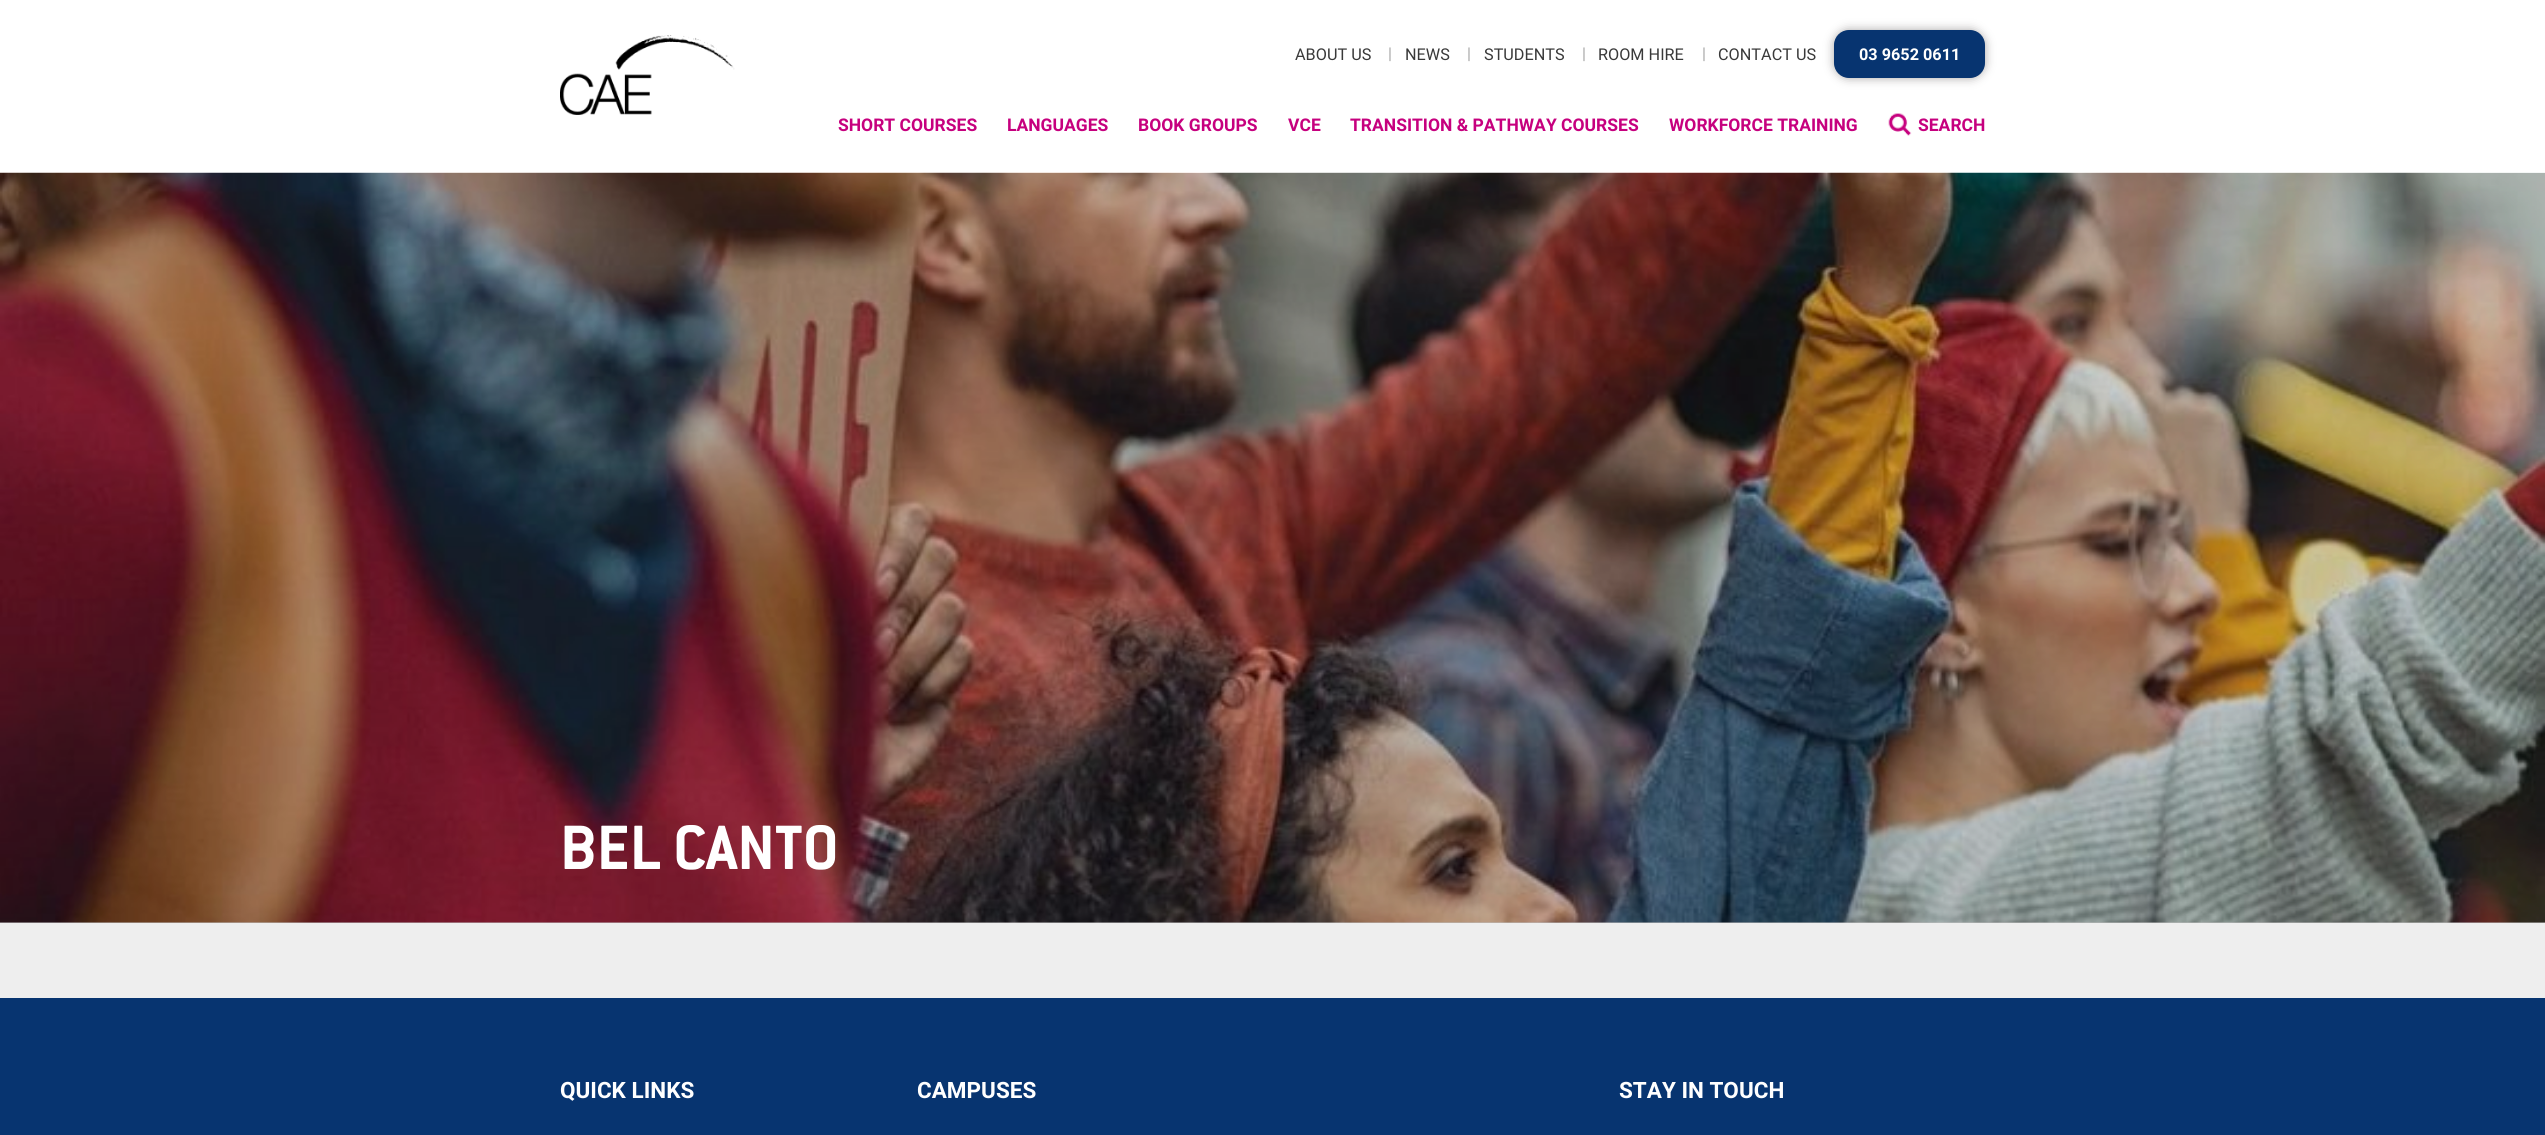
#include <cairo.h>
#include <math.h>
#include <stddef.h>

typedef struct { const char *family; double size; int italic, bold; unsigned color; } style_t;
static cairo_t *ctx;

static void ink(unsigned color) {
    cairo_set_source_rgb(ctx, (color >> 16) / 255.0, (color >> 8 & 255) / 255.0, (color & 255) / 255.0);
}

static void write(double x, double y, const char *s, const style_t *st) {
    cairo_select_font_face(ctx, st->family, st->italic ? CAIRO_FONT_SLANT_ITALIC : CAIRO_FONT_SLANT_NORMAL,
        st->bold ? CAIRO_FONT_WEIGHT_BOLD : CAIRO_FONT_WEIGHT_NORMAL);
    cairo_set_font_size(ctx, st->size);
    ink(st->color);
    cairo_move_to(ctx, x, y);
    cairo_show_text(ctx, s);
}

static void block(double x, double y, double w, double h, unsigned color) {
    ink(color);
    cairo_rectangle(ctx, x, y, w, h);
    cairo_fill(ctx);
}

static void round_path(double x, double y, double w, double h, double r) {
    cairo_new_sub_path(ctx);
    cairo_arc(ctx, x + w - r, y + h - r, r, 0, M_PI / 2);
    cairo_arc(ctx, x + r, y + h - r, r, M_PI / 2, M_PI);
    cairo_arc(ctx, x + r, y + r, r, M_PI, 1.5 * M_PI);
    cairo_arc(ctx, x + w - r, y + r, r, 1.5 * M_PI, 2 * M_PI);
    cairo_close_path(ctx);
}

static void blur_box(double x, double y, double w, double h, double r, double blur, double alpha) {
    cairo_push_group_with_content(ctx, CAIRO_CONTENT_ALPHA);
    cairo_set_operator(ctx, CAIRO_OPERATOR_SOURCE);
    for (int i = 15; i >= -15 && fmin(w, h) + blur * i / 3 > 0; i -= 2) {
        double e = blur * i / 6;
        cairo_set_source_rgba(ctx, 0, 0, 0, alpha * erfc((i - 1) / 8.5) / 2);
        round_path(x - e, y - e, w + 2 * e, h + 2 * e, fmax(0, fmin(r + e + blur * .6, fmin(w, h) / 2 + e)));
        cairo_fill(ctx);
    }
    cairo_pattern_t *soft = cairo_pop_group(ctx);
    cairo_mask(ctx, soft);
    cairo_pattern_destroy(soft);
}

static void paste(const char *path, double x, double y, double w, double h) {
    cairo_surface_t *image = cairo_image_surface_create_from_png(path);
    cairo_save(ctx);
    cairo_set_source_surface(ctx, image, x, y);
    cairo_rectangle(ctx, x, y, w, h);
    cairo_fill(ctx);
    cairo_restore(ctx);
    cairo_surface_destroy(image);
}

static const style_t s1 = {"Roboto", 16.25, 0, 0, 0x393939};
static const style_t s2 = {"Roboto", 16.25, 0, 0, 0xa7a7a7};
static const style_t s3 = {"Roboto", 16.25, 0, 1, 0xffffff};
static const style_t s4 = {"Roboto", 17.5, 0, 1, 0xc6007e};
static const style_t s5 = {"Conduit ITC", 68.75, 0, 1, 0xffffff};
static const style_t s6 = {"Roboto", 22.5, 0, 1, 0xffffff};

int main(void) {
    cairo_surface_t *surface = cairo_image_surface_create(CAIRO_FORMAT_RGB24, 2545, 1135);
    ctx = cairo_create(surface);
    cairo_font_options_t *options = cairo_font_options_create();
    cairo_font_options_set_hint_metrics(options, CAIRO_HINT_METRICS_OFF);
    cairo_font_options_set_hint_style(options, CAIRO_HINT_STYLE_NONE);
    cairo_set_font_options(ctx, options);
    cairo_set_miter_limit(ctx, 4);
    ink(0xffffff);
    cairo_paint(ctx);
    paste("pic1.png", 560, 35, 175, 80);
    write(1295, 60, "ABOUT US", &s1);
    write(1388, 59, "|", &s2);
    write(1405, 60, "NEWS", &s1);
    write(1467, 59, "|", &s2);
    write(1484, 60, "STUDENTS", &s1);
    write(1582, 59, "|", &s2);
    write(1598, 60, "ROOM HIRE", &s1);
    write(1702, 59, "|", &s2);
    write(1718, 60, "CONTACT US", &s1);
    ink(0xa9a6a6);
    blur_box(1834, 30, 151, 48, 15, 5, 1);
    ink(0x073470);
    round_path(1834, 30, 151, 48, 15);
    cairo_fill(ctx);
    write(1859, 60, "03 9652 0611", &s3);
    write(838, 131, "SHORT COURSES", &s4);
    write(1007, 131, "LANGUAGES", &s4);
    write(1138, 131, "BOOK GROUPS", &s4);
    write(1288, 131, "VCE", &s4);
    write(1350, 131, "TRANSITION & PATHWAY COURSES", &s4);
    write(1669, 131, "WORKFORCE TRAINING", &s4);
    paste("pic2.png", 1888, 113, 24, 23);
    write(1918, 131, "SEARCH", &s4);
    block(0, 922, 2545, 1, 0xbebebe);
    paste("pic3.png", 0, 172, 2545, 751);
    write(560, 869, "BEL CANTO", &s5);
    block(0, 923, 2545, 75, 0xeeeeee);
    block(0, 998, 2545, 137, 0x073470);
    write(560, 1098, "QUICK LINKS", &s6);
    write(917, 1098, "CAMPUSES", &s6);
    write(1619, 1098, "STAY IN TOUCH", &s6);
    cairo_surface_write_to_png(surface, "screenshot.png");
    cairo_font_options_destroy(options);
    cairo_destroy(ctx);
    cairo_surface_destroy(surface);
    return 0;
}
